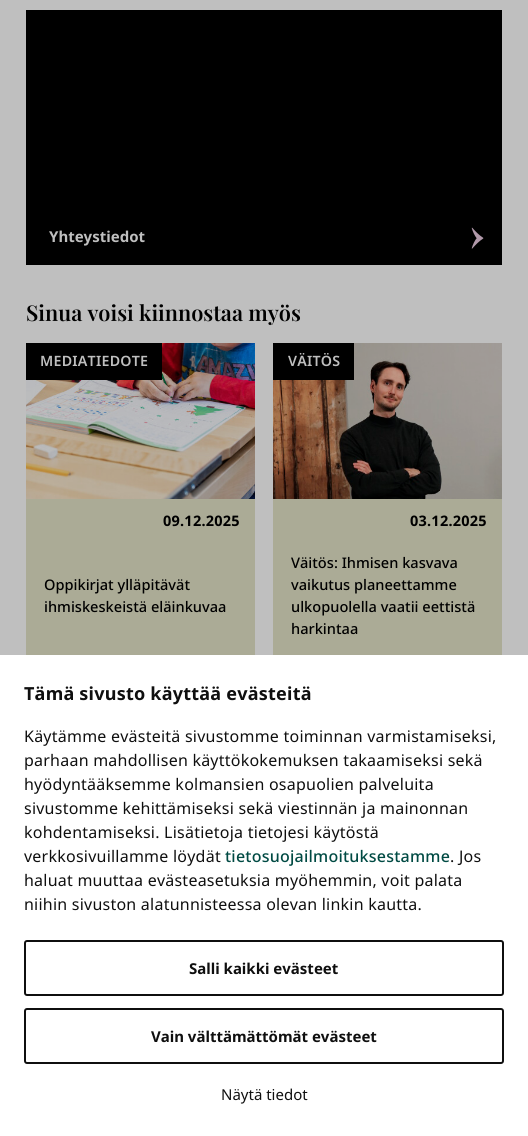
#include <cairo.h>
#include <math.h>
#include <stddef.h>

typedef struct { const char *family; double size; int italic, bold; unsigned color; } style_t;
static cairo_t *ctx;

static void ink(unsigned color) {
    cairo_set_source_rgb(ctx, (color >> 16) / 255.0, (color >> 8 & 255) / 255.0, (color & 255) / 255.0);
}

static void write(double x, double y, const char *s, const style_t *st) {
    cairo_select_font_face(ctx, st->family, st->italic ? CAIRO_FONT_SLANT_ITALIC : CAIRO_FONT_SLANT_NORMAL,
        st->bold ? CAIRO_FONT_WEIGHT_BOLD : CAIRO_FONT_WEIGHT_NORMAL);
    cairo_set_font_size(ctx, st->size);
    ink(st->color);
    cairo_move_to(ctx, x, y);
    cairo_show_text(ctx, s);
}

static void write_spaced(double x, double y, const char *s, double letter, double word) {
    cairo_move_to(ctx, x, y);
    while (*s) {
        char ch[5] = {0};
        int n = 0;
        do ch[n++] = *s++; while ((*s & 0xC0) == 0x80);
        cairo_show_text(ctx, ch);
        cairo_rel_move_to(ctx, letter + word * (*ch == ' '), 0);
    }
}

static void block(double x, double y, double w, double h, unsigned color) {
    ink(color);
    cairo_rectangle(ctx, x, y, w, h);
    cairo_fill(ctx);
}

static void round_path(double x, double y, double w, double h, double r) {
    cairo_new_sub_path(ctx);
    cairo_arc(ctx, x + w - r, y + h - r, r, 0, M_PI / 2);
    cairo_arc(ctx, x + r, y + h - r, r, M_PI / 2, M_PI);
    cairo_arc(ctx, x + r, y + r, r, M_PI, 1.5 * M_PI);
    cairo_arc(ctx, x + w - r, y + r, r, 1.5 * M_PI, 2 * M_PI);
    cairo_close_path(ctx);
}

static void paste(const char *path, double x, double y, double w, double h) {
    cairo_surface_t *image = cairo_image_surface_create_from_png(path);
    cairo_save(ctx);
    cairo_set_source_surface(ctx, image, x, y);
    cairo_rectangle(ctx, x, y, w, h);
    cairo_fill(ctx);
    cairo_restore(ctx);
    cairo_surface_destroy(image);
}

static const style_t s1 = {"Noto Sans", 15, 0, 1, 0xbfbfbf};
static const style_t s2 = {"Playfair Display ExtraBold", 38, 0, 0, 0xb199aa};
static const style_t s3 = {"Playfair Display SemiBold", 21.7, 0, 0, 0x000000};
static const style_t s4 = {"Noto Sans Medium", 14.6, 0, 0, 0x000000};
static const style_t s5 = {"Noto Sans", 15, 0, 1, 0x0f0f0f};
static const style_t s6 = {"Noto Sans", 15, 0, 0, 0x0f0f0f};

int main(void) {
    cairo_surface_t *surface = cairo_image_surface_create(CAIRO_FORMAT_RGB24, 528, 1136);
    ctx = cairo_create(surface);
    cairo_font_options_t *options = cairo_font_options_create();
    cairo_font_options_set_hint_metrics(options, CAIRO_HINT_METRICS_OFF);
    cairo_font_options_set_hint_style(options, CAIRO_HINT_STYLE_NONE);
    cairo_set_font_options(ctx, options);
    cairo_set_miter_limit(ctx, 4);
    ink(0xbfbfbf);
    cairo_paint(ctx);
    block(26, 10, 476, 255, 0x000000);
    write(49, 242, "Yhteystiedot", &s1);
    write(470, 248, "›", &s2);
    write(26, 321, "Sinua voisi kiinnostaa myös", &s3);
    block(26, 499, 229, 156, 0xabab96);
    paste("pic1.png", 26, 343, 229, 156);
    block(26, 343, 136, 37, 0x000000);
    cairo_select_font_face(ctx, "Noto Sans SemiBold", CAIRO_FONT_SLANT_NORMAL, CAIRO_FONT_WEIGHT_NORMAL);
    cairo_set_font_size(ctx, 14.25);
    ink(0xbfbfbf);
    write_spaced(40, 366, "MEDIATIEDOTE", 0.23, 0);
    cairo_select_font_face(ctx, "Noto Sans", CAIRO_FONT_SLANT_NORMAL, CAIRO_FONT_WEIGHT_BOLD);
    cairo_set_font_size(ctx, 14.5);
    ink(0x000000);
    write_spaced(163, 526, "09.12.2025", 0.23, 0);
    write(44, 590, "Oppikirjat ylläpitävät", &s4);
    write(44, 612, "ihmiskeskeistä eläinkuvaa", &s4);
    block(273, 499, 229, 156, 0xabab96);
    paste("pic2.png", 273, 343, 229, 156);
    block(273, 343, 81, 37, 0x000000);
    cairo_select_font_face(ctx, "Noto Sans SemiBold", CAIRO_FONT_SLANT_NORMAL, CAIRO_FONT_WEIGHT_NORMAL);
    cairo_set_font_size(ctx, 14.25);
    ink(0xbfbfbf);
    write_spaced(288, 366, "VÄITÖS", 0.23, 0);
    cairo_select_font_face(ctx, "Noto Sans", CAIRO_FONT_SLANT_NORMAL, CAIRO_FONT_WEIGHT_BOLD);
    cairo_set_font_size(ctx, 14.5);
    ink(0x000000);
    write_spaced(410, 526, "03.12.2025", 0.23, 0);
    write(291, 568, "Väitös: Ihmisen kasvava", &s4);
    write(291, 590, "vaikutus planeettamme", &s4);
    write(291, 612, "ulkopuolella vaatii eettistä", &s4);
    write(291, 634, "harkintaa", &s4);
    block(0, 655, 528, 481, 0xffffff);
    cairo_select_font_face(ctx, "Noto Sans", CAIRO_FONT_SLANT_NORMAL, CAIRO_FONT_WEIGHT_BOLD);
    cairo_set_font_size(ctx, 18);
    ink(0x0f0f0f);
    write_spaced(24, 700, "Tämä sivusto käyttää evästeitä", 0.23, 0);
    cairo_select_font_face(ctx, "Noto Sans", CAIRO_FONT_SLANT_NORMAL, CAIRO_FONT_WEIGHT_NORMAL);
    cairo_set_font_size(ctx, 16);
    write_spaced(24, 742, "Käytämme evästeitä sivustomme toiminnan varmistamiseksi,", 0.23, 0);
    write_spaced(24, 766, "parhaan mahdollisen käyttökokemuksen takaamiseksi sekä", 0.23, 0);
    write_spaced(24, 790, "hyödyntääksemme kolmansien osapuolien palveluita", 0.23, 0);
    write_spaced(24, 814, "sivustomme kehittämiseksi sekä viestinnän ja mainonnan", 0.23, 0);
    write_spaced(24, 838, "kohdentamiseksi. Lisätietoja tietojesi käytöstä", 0.23, 0);
    write_spaced(24, 862, "verkkosivuillamme löydät", 0.23, 0);
    cairo_select_font_face(ctx, "Noto Sans Medium", CAIRO_FONT_SLANT_NORMAL, CAIRO_FONT_WEIGHT_NORMAL);
    ink(0x004a43);
    write_spaced(225, 862, "tietosuojailmoituksestamme", 0.23, 0);
    cairo_select_font_face(ctx, "Noto Sans", CAIRO_FONT_SLANT_NORMAL, CAIRO_FONT_WEIGHT_NORMAL);
    ink(0x0f0f0f);
    write_spaced(450, 862, ". Jos", 0.23, 0);
    write_spaced(24, 886, "haluat muuttaa evästeasetuksia myöhemmin, voit palata", 0.23, 0);
    write_spaced(24, 910, "niihin sivuston alatunnisteessa olevan linkin kautta.", 0.23, 0);
    round_path(25, 941, 478, 54, 2);
    cairo_stroke(ctx);
    write(189, 974, "Salli kaikki evästeet", &s5);
    round_path(25, 1009, 478, 54, 2);
    cairo_stroke(ctx);
    write(151, 1042, "Vain välttämättömät evästeet", &s5);
    write(221, 1100, "Näytä tiedot", &s6);
    cairo_surface_write_to_png(surface, "screenshot.png");
    cairo_font_options_destroy(options);
    cairo_destroy(ctx);
    cairo_surface_destroy(surface);
    return 0;
}
